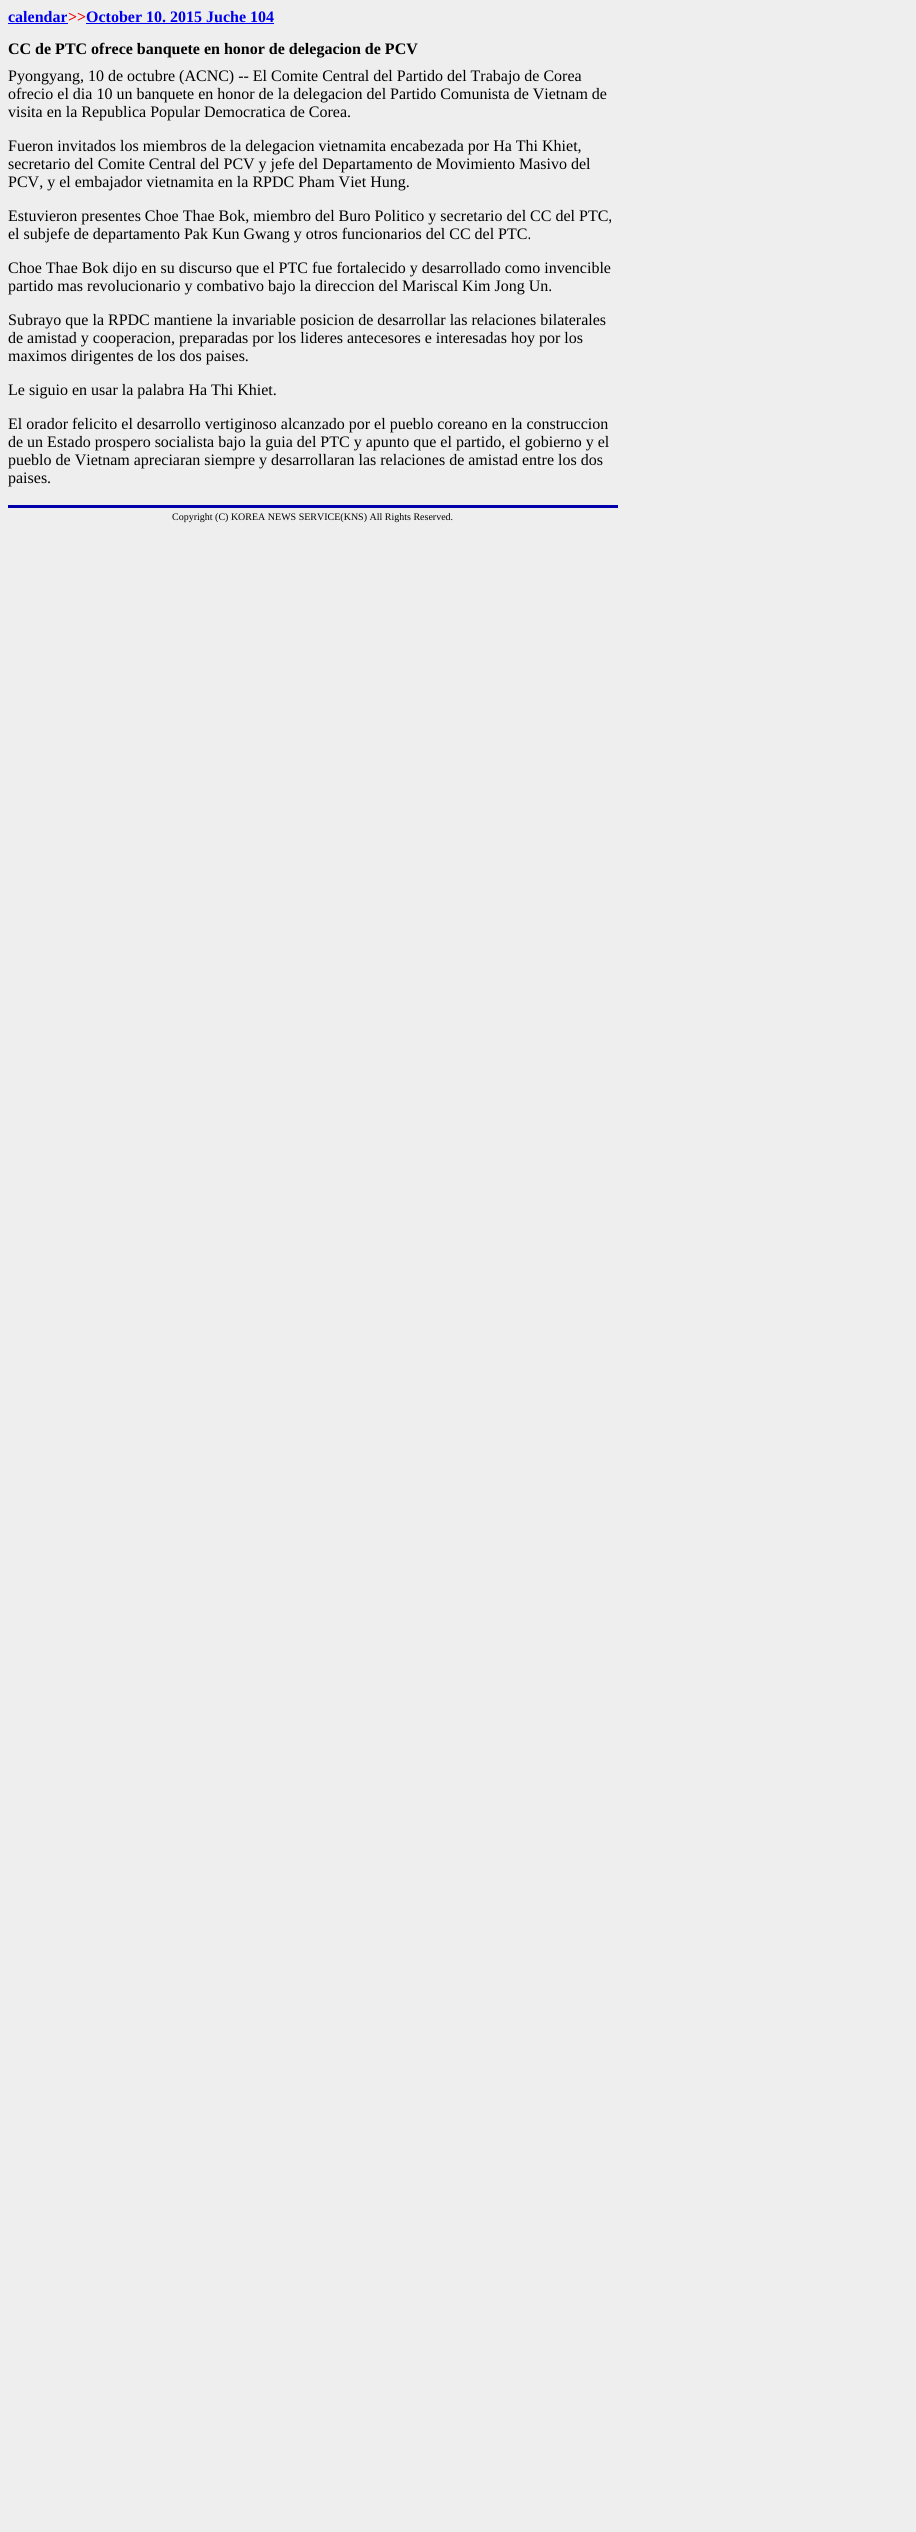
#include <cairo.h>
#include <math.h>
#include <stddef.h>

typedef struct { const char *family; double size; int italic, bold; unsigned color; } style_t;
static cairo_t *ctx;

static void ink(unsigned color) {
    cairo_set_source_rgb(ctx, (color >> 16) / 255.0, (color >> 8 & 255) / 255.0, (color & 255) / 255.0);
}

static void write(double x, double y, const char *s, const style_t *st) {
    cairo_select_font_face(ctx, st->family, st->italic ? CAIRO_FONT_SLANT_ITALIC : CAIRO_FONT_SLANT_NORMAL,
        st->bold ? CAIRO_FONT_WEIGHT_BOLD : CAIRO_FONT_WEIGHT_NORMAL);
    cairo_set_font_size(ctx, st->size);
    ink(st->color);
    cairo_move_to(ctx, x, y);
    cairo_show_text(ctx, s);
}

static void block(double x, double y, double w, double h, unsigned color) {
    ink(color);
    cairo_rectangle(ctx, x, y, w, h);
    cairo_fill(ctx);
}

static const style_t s1 = {"Liberation Serif", 16, 0, 1, 0x0000ee};
static const style_t s2 = {"Liberation Serif", 16, 0, 1, 0xee0000};
static const style_t s3 = {"Liberation Serif", 16, 0, 1, 0x000000};
static const style_t s4 = {"Liberation Serif", 16, 0, 0, 0x000000};
static const style_t s5 = {"Liberation Serif", 10, 0, 0, 0x000000};

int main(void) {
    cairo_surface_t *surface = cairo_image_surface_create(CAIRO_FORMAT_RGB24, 916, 2532);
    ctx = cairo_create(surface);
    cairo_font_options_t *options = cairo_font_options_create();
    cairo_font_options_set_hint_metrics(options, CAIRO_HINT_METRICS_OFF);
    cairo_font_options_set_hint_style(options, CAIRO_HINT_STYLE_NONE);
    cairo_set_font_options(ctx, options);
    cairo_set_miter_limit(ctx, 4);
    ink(0xeeeeee);
    cairo_paint(ctx);
    write(8, 22, "calendar", &s1);
    block(8, 23, 60, 1, 0x0000ee);
    write(68, 22, ">>", &s2);
    write(86, 22, "October 10. 2015 Juche 104", &s1);
    block(86, 23, 188, 1, 0x0000ee);
    write(8, 54, "CC de PTC ofrece banquete en honor de delegacion de PCV", &s3);
    write(8, 81, "Pyongyang, 10 de octubre (ACNC) -- El Comite Central del Partido del Trabajo de Corea", &s4);
    write(8, 99, "ofrecio el dia 10 un banquete en honor de la delegacion del Partido Comunista de Vietnam de", &s4);
    write(8, 117, "visita en la Republica Popular Democratica de Corea.", &s4);
    write(8, 151, "Fueron invitados los miembros de la delegacion vietnamita encabezada por Ha Thi Khiet,", &s4);
    write(8, 169, "secretario del Comite Central del PCV y jefe del Departamento de Movimiento Masivo del", &s4);
    write(8, 187, "PCV, y el embajador vietnamita en la RPDC Pham Viet Hung.", &s4);
    write(8, 221, "Estuvieron presentes Choe Thae Bok, miembro del Buro Politico y secretario del CC del PTC,", &s4);
    write(8, 239, "el subjefe de departamento Pak Kun Gwang y otros funcionarios del CC del PTC.", &s4);
    write(8, 273, "Choe Thae Bok dijo en su discurso que el PTC fue fortalecido y desarrollado como invencible", &s4);
    write(8, 291, "partido mas revolucionario y combativo bajo la direccion del Mariscal Kim Jong Un.", &s4);
    write(8, 325, "Subrayo que la RPDC mantiene la invariable posicion de desarrollar las relaciones bilaterales", &s4);
    write(8, 343, "de amistad y cooperacion, preparadas por los lideres antecesores e interesadas hoy por los", &s4);
    write(8, 361, "maximos dirigentes de los dos paises.", &s4);
    write(8, 395, "Le siguio en usar la palabra Ha Thi Khiet.", &s4);
    write(8, 429, "El orador felicito el desarrollo vertiginoso alcanzado por el pueblo coreano en la construccion", &s4);
    write(8, 447, "de un Estado prospero socialista bajo la guia del PTC y apunto que el partido, el gobierno y el", &s4);
    write(8, 465, "pueblo de Vietnam apreciaran siempre y desarrollaran las relaciones de amistad entre los dos", &s4);
    write(8, 483, "paises.", &s4);
    block(8, 505, 610, 3, 0x0000aa);
    write(172, 520, "Copyright (C) KOREA NEWS SERVICE(KNS) All Rights Reserved.", &s5);
    cairo_surface_write_to_png(surface, "screenshot.png");
    cairo_font_options_destroy(options);
    cairo_destroy(ctx);
    cairo_surface_destroy(surface);
    return 0;
}
